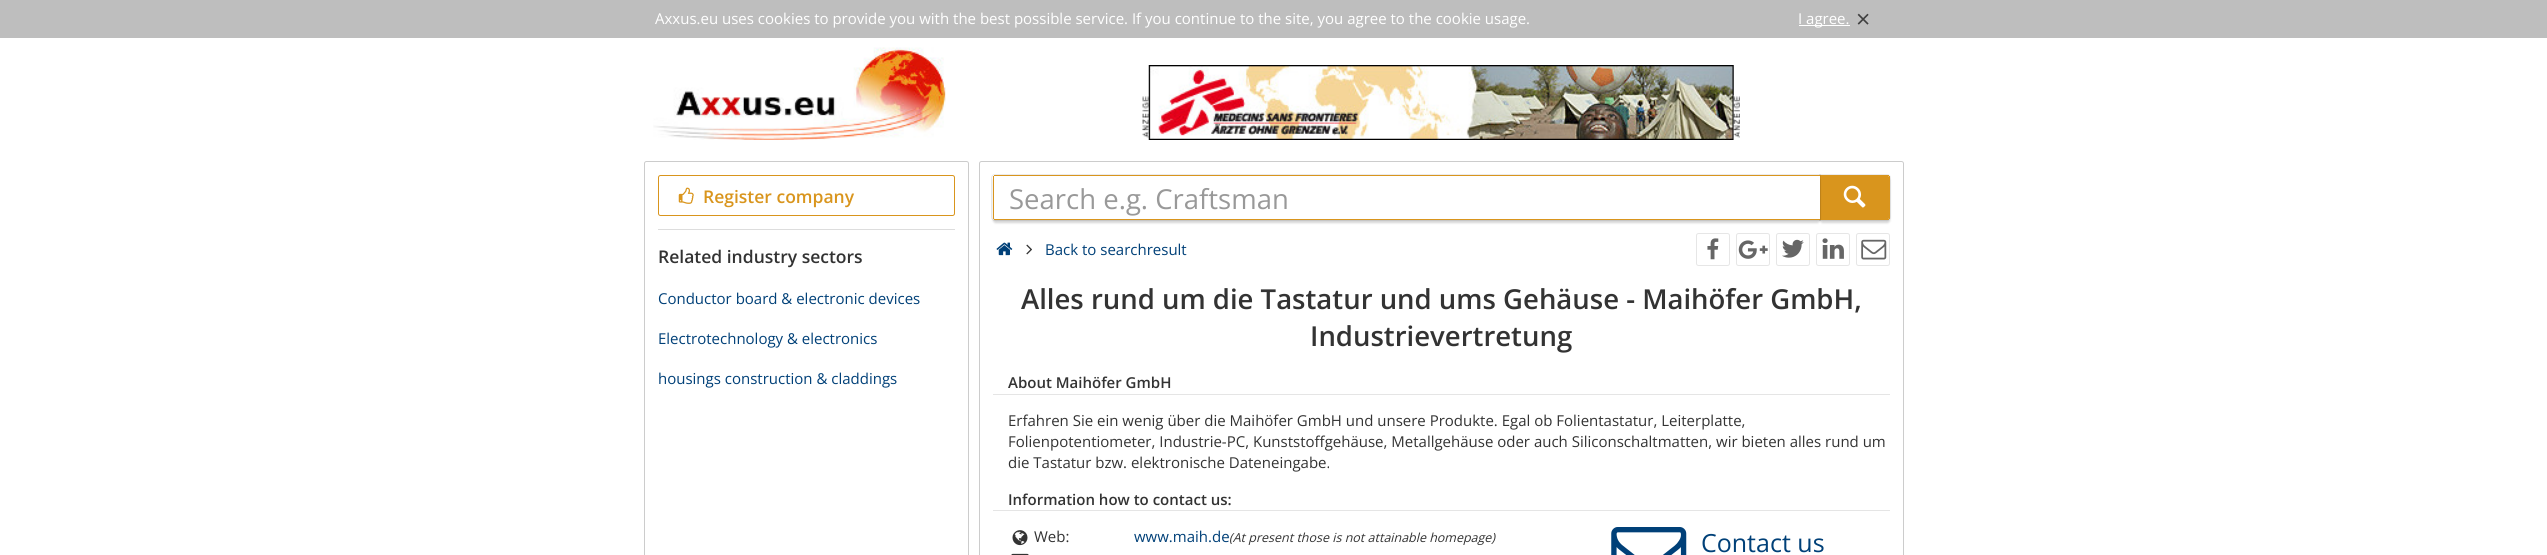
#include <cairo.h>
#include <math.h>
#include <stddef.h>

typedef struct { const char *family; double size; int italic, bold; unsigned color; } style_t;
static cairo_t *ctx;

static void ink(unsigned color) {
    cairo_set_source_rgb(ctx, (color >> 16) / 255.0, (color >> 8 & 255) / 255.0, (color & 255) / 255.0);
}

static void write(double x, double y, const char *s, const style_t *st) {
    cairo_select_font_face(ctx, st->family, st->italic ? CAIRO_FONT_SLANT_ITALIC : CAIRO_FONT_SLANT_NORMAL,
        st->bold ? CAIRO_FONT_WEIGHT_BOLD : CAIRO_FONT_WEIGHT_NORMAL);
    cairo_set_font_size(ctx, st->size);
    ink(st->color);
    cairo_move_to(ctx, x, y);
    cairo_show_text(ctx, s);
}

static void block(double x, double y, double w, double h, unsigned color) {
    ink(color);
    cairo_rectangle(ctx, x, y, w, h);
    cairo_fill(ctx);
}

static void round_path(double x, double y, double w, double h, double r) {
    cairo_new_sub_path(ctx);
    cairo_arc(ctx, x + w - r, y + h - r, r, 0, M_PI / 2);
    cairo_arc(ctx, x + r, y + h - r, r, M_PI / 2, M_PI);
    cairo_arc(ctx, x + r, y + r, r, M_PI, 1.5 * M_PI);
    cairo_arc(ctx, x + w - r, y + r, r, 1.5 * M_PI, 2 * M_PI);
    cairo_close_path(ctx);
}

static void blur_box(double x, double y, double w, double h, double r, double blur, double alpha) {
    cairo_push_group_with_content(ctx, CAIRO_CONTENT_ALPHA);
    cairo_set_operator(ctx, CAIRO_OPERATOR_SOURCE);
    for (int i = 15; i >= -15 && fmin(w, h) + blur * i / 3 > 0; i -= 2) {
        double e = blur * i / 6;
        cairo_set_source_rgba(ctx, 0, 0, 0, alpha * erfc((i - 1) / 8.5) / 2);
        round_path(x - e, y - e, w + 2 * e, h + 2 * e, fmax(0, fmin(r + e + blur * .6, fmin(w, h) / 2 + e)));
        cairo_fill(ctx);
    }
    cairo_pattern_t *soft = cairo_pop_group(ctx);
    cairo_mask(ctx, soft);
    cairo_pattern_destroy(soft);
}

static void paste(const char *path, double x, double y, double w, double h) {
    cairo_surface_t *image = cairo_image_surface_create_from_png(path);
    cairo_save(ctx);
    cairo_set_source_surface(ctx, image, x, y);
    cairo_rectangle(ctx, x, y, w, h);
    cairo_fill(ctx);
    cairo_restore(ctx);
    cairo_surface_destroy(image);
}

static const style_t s1 = {"Open Sans", 15, 0, 0, 0xffffff};
static const style_t s2 = {"Open Sans", 25, 0, 0, 0x404040};
static const style_t s3 = {"Open Sans SemiBold", 17.5, 0, 0, 0xd9951d};
static const style_t s4 = {"Open Sans SemiBold", 17.5, 0, 0, 0x333333};
static const style_t s5 = {"Open Sans", 15, 0, 0, 0x004078};
static const style_t s6 = {"Open Sans", 27.5, 0, 0, 0x999999};
static const style_t s7 = {"Open Sans SemiBold", 27.5, 0, 0, 0x333333};
static const style_t s8 = {"Open Sans SemiBold", 15, 0, 0, 0x333333};
static const style_t s9 = {"Open Sans", 15, 0, 0, 0x333333};
static const style_t s10 = {"Open Sans", 12.5, 1, 0, 0x333333};
static const style_t s11 = {"Open Sans", 25, 0, 0, 0x004078};

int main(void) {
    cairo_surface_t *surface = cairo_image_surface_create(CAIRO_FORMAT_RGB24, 2547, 555);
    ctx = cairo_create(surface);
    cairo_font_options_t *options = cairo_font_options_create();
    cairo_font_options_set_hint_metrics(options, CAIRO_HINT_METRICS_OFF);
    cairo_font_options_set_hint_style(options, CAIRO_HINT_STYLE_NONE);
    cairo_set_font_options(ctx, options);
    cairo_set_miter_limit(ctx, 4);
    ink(0xffffff);
    cairo_paint(ctx);
    block(0, 0, 2547, 38, 0xbebebe);
    write(655, 24, "Axxus.eu uses cookies to provide you with the best possible service. If you continue to the site, you agree to the cookie usage.", &s1);
    block(1799, 25, 51, 1, 0xffffff);
    write(1798, 24, "I agree.", &s1);
    write(1856, 28, "×", &s2);
    paste("pic1.png", 653, 47, 293, 93);
    paste("pic2.png", 1142, 96, 7, 42);
    paste("pic3.png", 1148, 65, 586, 75);
    paste("pic4.png", 1733, 95, 7, 45);
    round_path(644.5, 161.5, 324, 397, 2);
    ink(0xcccccc);
    cairo_set_line_width(ctx, 1);
    cairo_stroke(ctx);
    round_path(658.5, 175.5, 296, 40, 2);
    ink(0xd9951d);
    cairo_stroke(ctx);
    paste("pic5.png", 678, 187, 16, 17);
    write(703, 203, "Register company", &s3);
    block(658, 229, 297, 1, 0xdddddd);
    write(658, 263, "Related industry sectors", &s4);
    write(658, 304, "Conductor board & electronic devices", &s5);
    write(658, 344, "Electrotechnology & electronics", &s5);
    write(658, 384, "housings construction & claddings", &s5);
    round_path(979.5, 161.5, 924, 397, 2);
    ink(0xcccccc);
    cairo_stroke(ctx);
    cairo_new_path(ctx);
    cairo_move_to(ctx, 1819.5, 174.5);
    cairo_line_to(ctx, 1887, 174.5);
    cairo_curve_to(ctx, 1889, 174.5, 1890.5, 176, 1890.5, 178);
    cairo_line_to(ctx, 1890.5, 217);
    cairo_curve_to(ctx, 1890.5, 219, 1889, 220.5, 1887, 220.5);
    cairo_line_to(ctx, 1819.5, 220.5);
    cairo_close_path(ctx);
    ink(0xebebeb);
    cairo_stroke(ctx);
    ink(0x000000);
    blur_box(1820, 178, 70, 45, 2.5, 1, 0.16);
    ink(0xd9951d);
    cairo_new_path(ctx);
    cairo_move_to(ctx, 1820, 176);
    cairo_line_to(ctx, 1888, 176);
    cairo_curve_to(ctx, 1888.5, 176, 1889, 176.5, 1889, 177);
    cairo_line_to(ctx, 1889, 218);
    cairo_curve_to(ctx, 1889, 218.5, 1888.5, 219, 1888, 219);
    cairo_line_to(ctx, 1820, 219);
    cairo_close_path(ctx);
    cairo_fill(ctx);
    block(1820, 175, 69, 1, 0xd9951d);
    block(1820, 219, 69, 1, 0xd9951d);
    cairo_new_path(ctx);
    cairo_move_to(ctx, 995, 174.5);
    cairo_line_to(ctx, 1820.5, 174.5);
    cairo_line_to(ctx, 1820.5, 220.5);
    cairo_line_to(ctx, 995, 220.5);
    cairo_curve_to(ctx, 993, 220.5, 991.5, 219, 991.5, 217);
    cairo_line_to(ctx, 991.5, 178);
    cairo_curve_to(ctx, 991.5, 176, 993, 174.5, 995, 174.5);
    cairo_close_path(ctx);
    cairo_set_source_rgba(ctx, 0, 0, 0, 0.08);
    cairo_stroke(ctx);
    ink(0x000000);
    blur_box(993, 178, 827, 45, 2.5, 1, 0.16);
    ink(0xffffff);
    cairo_new_path(ctx);
    cairo_move_to(ctx, 995, 176);
    cairo_line_to(ctx, 1820, 176);
    cairo_line_to(ctx, 1820, 219);
    cairo_line_to(ctx, 995, 219);
    cairo_curve_to(ctx, 994.5, 219, 994, 218.5, 994, 218);
    cairo_line_to(ctx, 994, 177);
    cairo_curve_to(ctx, 994, 176.5, 994.5, 176, 995, 176);
    cairo_close_path(ctx);
    cairo_fill(ctx);
    block(994, 175, 826, 1, 0xd9951d);
    block(994, 219, 826, 1, 0xd9951d);
    block(993, 176, 1, 43, 0xd9951d);
    write(1009, 209, "Search e.g. Craftsman", &s6);
    block(1889, 176, 1, 43, 0xd9951d);
    paste("pic6.png", 1843, 185, 23, 23);
    paste("pic7.png", 996, 242, 17, 14);
    paste("pic8.png", 1026, 244, 6, 11);
    write(1045, 255, "Back to searchresult", &s5);
    round_path(1696.5, 233.5, 33, 32, 2);
    ink(0xe6e6e6);
    cairo_stroke(ctx);
    paste("pic9.png", 1707, 238, 12, 22);
    round_path(1736.5, 233.5, 33, 32, 2);
    cairo_stroke(ctx);
    paste("pic10.png", 1738, 240, 30, 19);
    round_path(1776.5, 233.5, 33, 32, 2);
    cairo_stroke(ctx);
    paste("pic11.png", 1782, 239, 22, 19);
    round_path(1816.5, 233.5, 33, 32, 2);
    cairo_stroke(ctx);
    paste("pic12.png", 1822, 238, 22, 21);
    round_path(1856.5, 233.5, 33, 32, 2);
    cairo_stroke(ctx);
    paste("pic13.png", 1861, 239, 26, 21);
    write(1021, 309, "Alles rund um die Tastatur und ums Gehäuse - Maihöfer GmbH,", &s7);
    write(1310, 346, "Industrievertretung", &s7);
    write(1008, 388, "About Maihöfer GmbH", &s8);
    block(993, 394, 897, 1, 0xe5e5e5);
    write(1008, 426, "Erfahren Sie ein wenig über die Maihöfer GmbH und unsere Produkte. Egal ob Folientastatur, Leiterplatte,", &s9);
    write(1008, 447, "Folienpotentiometer, Industrie-PC, Kunststoffgehäuse, Metallgehäuse oder auch Siliconschaltmatten, wir bieten alles rund um", &s9);
    write(1008, 468, "die Tastatur bzw. elektronische Dateneingabe.", &s9);
    write(1008, 505, "Information how to contact us:", &s8);
    block(993, 510, 897, 1, 0xe5e5e5);
    paste("pic14.png", 1012, 530, 16, 16);
    write(1034, 542, "Web:", &s9);
    write(1134, 542, "www.maih.de", &s5);
    write(1229, 542, "(At present those is not attainable homepage)", &s10);
    paste("pic15.png", 1011, 553, 18, 2);
    paste("pic16.png", 1611, 527, 76, 28);
    write(1701, 552, "Contact us", &s11);
    cairo_surface_write_to_png(surface, "screenshot.png");
    cairo_font_options_destroy(options);
    cairo_destroy(ctx);
    cairo_surface_destroy(surface);
    return 0;
}
